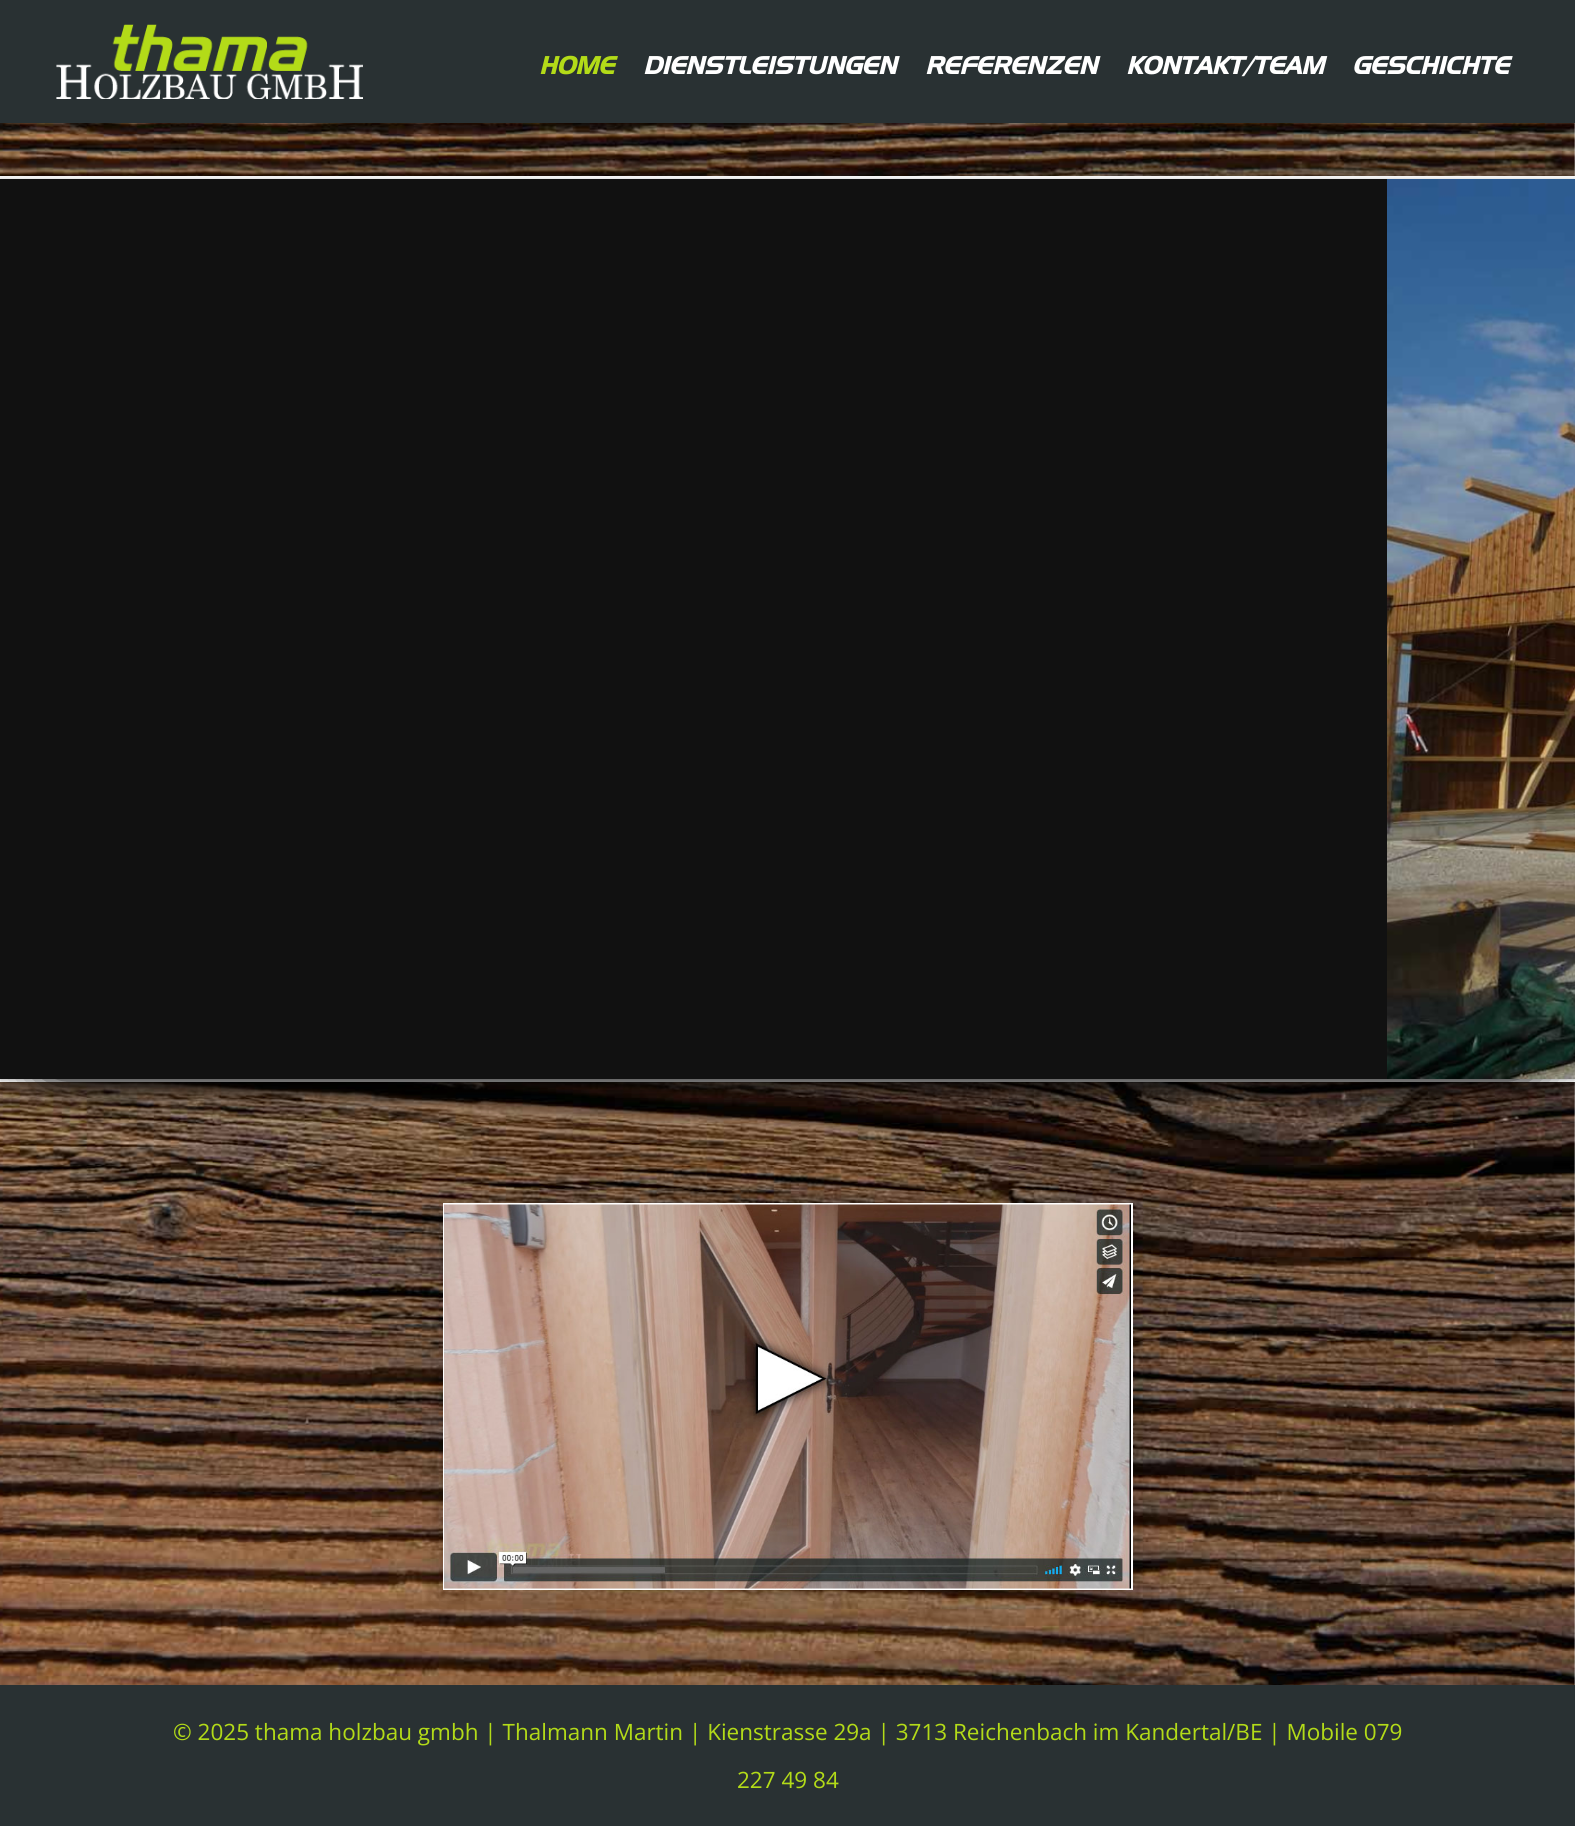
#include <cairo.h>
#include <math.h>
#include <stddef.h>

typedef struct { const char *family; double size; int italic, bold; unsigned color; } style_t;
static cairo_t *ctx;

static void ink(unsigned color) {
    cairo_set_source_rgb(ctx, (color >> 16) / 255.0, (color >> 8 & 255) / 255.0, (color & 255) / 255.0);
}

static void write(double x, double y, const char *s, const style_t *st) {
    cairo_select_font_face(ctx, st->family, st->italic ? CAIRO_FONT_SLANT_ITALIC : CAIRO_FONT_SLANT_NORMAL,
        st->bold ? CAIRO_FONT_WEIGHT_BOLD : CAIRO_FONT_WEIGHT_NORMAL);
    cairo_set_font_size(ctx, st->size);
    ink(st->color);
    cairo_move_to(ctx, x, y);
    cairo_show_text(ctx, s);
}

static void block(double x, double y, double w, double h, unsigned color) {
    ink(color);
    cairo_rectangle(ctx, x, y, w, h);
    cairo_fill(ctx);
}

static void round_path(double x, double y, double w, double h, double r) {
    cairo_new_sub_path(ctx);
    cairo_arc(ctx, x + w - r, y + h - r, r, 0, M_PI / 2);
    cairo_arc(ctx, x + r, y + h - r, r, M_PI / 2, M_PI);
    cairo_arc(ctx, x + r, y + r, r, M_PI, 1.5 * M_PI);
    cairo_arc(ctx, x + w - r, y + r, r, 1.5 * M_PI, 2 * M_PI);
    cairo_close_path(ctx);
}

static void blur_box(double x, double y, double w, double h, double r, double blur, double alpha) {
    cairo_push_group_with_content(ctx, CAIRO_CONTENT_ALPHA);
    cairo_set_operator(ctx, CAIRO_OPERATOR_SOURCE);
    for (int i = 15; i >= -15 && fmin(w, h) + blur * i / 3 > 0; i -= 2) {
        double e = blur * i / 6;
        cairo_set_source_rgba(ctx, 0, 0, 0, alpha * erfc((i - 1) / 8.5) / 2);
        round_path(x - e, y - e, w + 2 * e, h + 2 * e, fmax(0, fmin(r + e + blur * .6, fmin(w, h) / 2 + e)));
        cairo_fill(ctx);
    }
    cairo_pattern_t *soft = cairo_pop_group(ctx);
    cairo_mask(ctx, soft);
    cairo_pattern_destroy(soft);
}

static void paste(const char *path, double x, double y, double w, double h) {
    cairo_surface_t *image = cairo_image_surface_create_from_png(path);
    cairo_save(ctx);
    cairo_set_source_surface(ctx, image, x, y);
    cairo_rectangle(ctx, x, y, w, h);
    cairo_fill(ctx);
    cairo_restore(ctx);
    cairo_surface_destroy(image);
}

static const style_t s1 = {"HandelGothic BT", 24, 1, 1, 0xb3db18};
static const style_t s2 = {"HandelGothic BT", 24, 1, 1, 0xffffff};
static const style_t s3 = {"Open Sans", 22.5, 0, 0, 0xb3db18};

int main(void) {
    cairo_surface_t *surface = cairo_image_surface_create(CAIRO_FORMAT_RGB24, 1575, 1826);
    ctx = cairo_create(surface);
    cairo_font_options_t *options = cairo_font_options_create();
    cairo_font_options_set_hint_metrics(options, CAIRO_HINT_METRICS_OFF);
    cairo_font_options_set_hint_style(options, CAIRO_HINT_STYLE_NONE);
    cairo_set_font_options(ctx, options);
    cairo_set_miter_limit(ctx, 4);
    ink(0xffffff);
    cairo_paint(ctx);
    paste("pic1.png", 0, 123, 1575, 1562);
    cairo_set_source_rgba(ctx, 0, 0, 0, 0.1);
    cairo_rectangle(ctx, 0, 123, 1575, 2);
    cairo_fill(ctx);
    block(0, 0, 1575, 123, 0x293133);
    paste("pic2.png", 56, 24, 307, 75);
    write(539, 74, "HOME", &s1);
    write(643, 74, "DIENSTLEISTUNGEN", &s2);
    write(925, 74, "REFERENZEN", &s2);
    write(1126, 74, "KONTAKT/TEAM", &s2);
    write(1352, 74, "GESCHICHTE", &s2);
    ink(0x000000);
    blur_box(0, 179, 1575, 906, 0, 13.5, 0.88);
    block(0, 176, 1575, 3, 0xffffff);
    block(0, 1079, 1575, 3, 0xffffff);
    ink(0x000000);
    blur_box(0, 180, 1575, 900, 0, 3, 0.3);
    blur_box(30, 449, 1515, 630, 30, 19, 0.6);
    blur_box(30, 449, 1515, 630, 30, 19, 0.6);
    block(0, 179, 1387, 900, 0x111111);
    paste("pic3.png", 1387, 179, 188, 900);
    ink(0x000000);
    blur_box(443, 1206, 690, 387, 0, 13.5, 0.3);
    cairo_rectangle(ctx, 444, 1204, 688, 385);
    ink(0xffffff);
    cairo_stroke(ctx);
    paste("pic4.png", 444, 1204, 687, 385);
    block(0, 1685, 1575, 141, 0x293133);
    write(173, 1740, "© 2025 thama holzbau gmbh | Thalmann Martin | Kienstrasse 29a | 3713 Reichenbach im Kandertal/BE | Mobile 079", &s3);
    write(737, 1788, "227 49 84", &s3);
    cairo_surface_write_to_png(surface, "screenshot.png");
    cairo_font_options_destroy(options);
    cairo_destroy(ctx);
    cairo_surface_destroy(surface);
    return 0;
}
